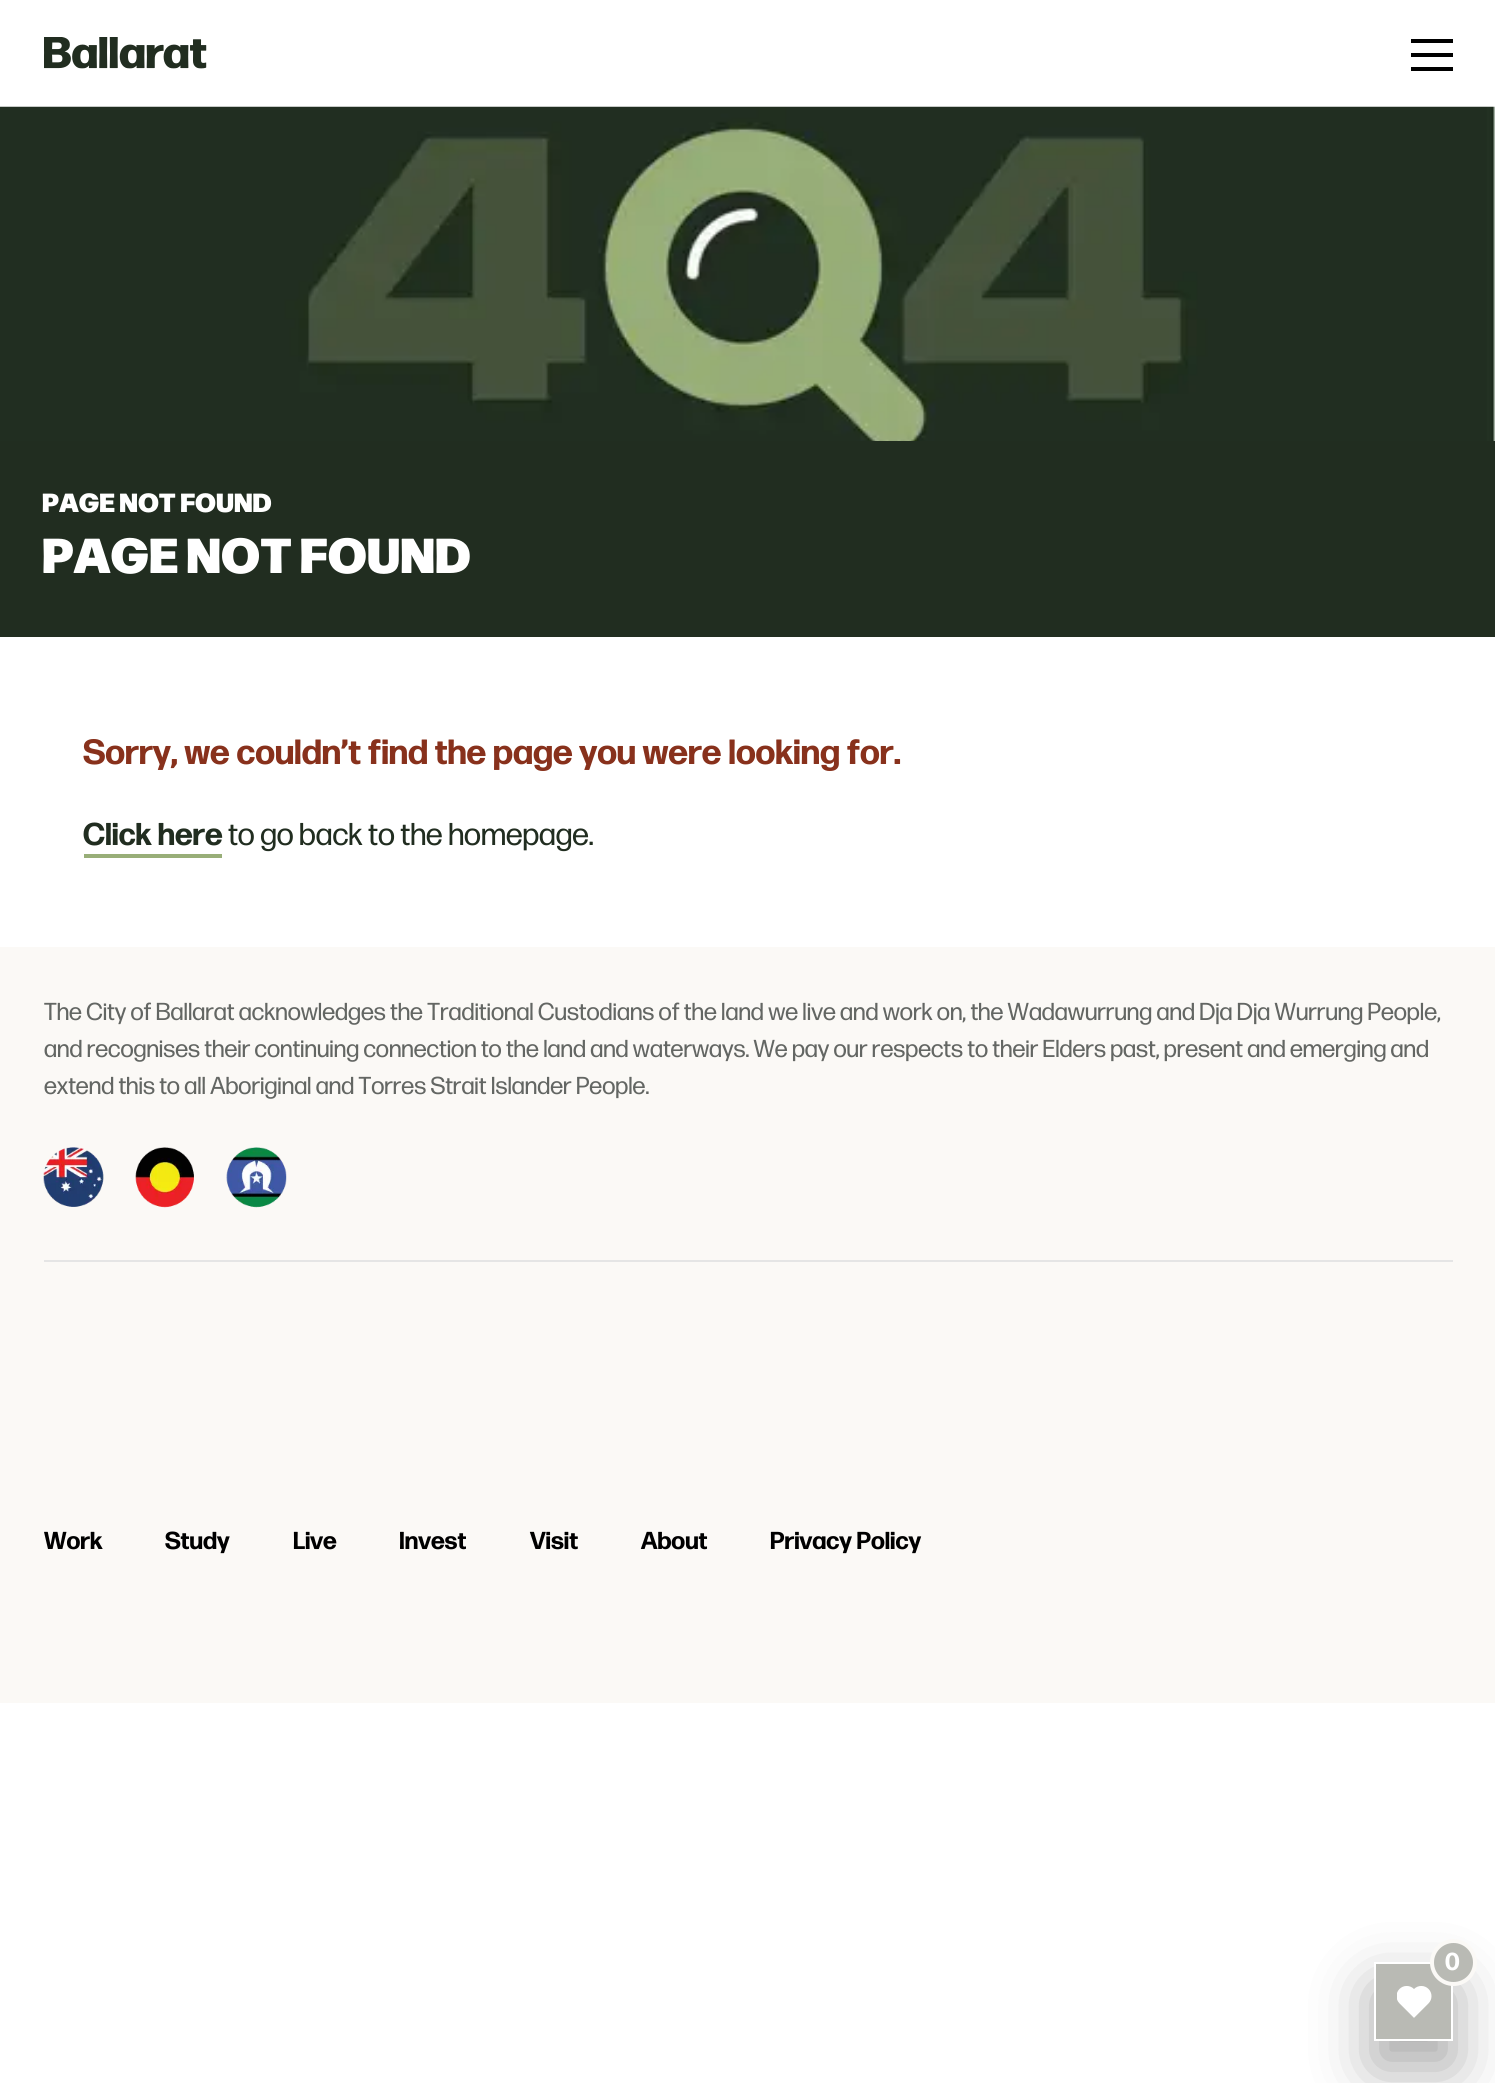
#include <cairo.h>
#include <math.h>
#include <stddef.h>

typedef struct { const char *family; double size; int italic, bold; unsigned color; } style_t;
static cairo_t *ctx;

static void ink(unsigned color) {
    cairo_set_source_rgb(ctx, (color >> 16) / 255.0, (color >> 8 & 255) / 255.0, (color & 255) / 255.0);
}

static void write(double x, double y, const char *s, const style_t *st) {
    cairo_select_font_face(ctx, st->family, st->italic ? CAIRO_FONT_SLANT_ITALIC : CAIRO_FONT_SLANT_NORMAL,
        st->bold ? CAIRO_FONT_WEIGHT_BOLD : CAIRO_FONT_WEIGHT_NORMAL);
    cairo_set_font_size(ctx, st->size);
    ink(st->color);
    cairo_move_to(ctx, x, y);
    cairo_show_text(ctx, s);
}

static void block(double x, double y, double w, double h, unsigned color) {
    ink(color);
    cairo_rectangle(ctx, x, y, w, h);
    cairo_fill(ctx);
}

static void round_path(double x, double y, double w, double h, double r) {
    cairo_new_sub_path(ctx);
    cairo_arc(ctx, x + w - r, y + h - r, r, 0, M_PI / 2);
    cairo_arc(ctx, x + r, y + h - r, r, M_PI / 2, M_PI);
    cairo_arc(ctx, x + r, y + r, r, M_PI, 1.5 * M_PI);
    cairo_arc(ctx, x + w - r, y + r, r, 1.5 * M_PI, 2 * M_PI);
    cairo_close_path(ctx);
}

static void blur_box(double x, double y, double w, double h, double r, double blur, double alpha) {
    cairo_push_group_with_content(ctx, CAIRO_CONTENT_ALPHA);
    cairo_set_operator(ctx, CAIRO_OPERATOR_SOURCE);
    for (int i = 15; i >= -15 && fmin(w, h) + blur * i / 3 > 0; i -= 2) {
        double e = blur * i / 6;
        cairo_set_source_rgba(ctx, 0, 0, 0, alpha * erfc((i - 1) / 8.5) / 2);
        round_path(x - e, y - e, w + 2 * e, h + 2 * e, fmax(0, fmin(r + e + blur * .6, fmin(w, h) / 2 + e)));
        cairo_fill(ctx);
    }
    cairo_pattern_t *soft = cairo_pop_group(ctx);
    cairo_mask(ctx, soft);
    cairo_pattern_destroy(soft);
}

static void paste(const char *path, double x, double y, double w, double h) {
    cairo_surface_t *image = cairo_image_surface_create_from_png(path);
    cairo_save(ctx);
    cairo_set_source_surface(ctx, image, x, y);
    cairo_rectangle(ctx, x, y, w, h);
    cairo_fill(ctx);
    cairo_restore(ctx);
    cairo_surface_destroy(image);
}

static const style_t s1 = {"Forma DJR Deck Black", 26.25, 0, 0, 0xffffff};
static const style_t s2 = {"Forma DJR Deck Black", 49, 0, 0, 0xffffff};
static const style_t s3 = {"Forma DJR Deck", 35, 0, 1, 0x88311c};
static const style_t s4 = {"Forma DJR Deck", 31.5, 0, 1, 0x212d20};
static const style_t s5 = {"Forma DJR Deck", 31.5, 0, 0, 0x212d20};
static const style_t s6 = {"Forma DJR Deck", 24.5, 0, 0, 0x636663};
static const style_t s7 = {"Forma DJR Deck", 24.5, 0, 1, 0x000000};
static const style_t s8 = {"Forma DJR Deck", 24.5, 0, 1, 0xffffff};

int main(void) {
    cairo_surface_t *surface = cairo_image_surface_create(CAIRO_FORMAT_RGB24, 1495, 2083);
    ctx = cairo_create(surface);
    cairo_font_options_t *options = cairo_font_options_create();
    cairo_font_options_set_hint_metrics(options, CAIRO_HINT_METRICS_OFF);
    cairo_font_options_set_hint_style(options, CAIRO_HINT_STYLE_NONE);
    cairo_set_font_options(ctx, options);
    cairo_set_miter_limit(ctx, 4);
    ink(0xffffff);
    cairo_paint(ctx);
    paste("pic1.png", 44, 37, 163, 32);
    block(1411, 39, 42, 4, 0x000000);
    block(1411, 53, 42, 4, 0x000000);
    block(1411, 67, 42, 4, 0x000000);
    block(0, 441, 1495, 196, 0x212d20);
    paste("pic2.png", 0, 106, 1495, 335);
    write(42, 512, "PAGE NOT FOUND", &s1);
    write(42, 573, "PAGE NOT FOUND", &s2);
    write(83, 764, "Sorry, we couldn’t find the page you were looking for.", &s3);
    block(84, 854, 138, 4, 0x98ae78);
    write(83, 845, "Click here", &s4);
    write(228, 845, "to go back to the homepage.", &s5);
    block(0, 947, 1495, 756, 0xfbf9f6);
    write(44, 1020, "The City of Ballarat acknowledges the Traditional Custodians of the land we live and work on, the Wadawurrung and Dja Dja Wurrung People,", &s6);
    write(44, 1057, "and recognises their continuing connection to the land and waterways. We pay our respects to their Elders past, present and emerging and", &s6);
    write(44, 1094, "extend this to all Aboriginal and Torres Strait Islander People.", &s6);
    paste("pic3.png", 43, 1147, 61, 60);
    paste("pic4.png", 135, 1147, 59, 61);
    paste("pic5.png", 226, 1147, 61, 61);
    block(44, 1260, 1409, 2, 0xe5e5e5);
    write(44, 1549, "Work", &s7);
    write(165, 1549, "Study", &s7);
    write(293, 1549, "Live", &s7);
    write(399, 1549, "Invest", &s7);
    write(530, 1549, "Visit", &s7);
    write(641, 1549, "About", &s7);
    write(770, 1549, "Privacy Policy", &s7);
    ink(0x000000);
    blur_box(1374, 1988, 79, 79, 0, 30.5, 0.35);
    ink(0xb9bab4);
    cairo_rectangle(ctx, 1375, 1963, 77, 77);
    cairo_fill_preserve(ctx);
    ink(0xffffff);
    cairo_stroke(ctx);
    ink(0xb9bab4);
    cairo_arc(ctx, 1453.5, 1962.5, 21.5, 0, 2 * M_PI);
    cairo_fill_preserve(ctx);
    ink(0xfbf9f6);
    cairo_set_line_width(ctx, 4);
    cairo_stroke(ctx);
    write(1445, 1970, "0", &s8);
    paste("pic6.png", 1397, 1986, 35, 32);
    cairo_surface_write_to_png(surface, "screenshot.png");
    cairo_font_options_destroy(options);
    cairo_destroy(ctx);
    cairo_surface_destroy(surface);
    return 0;
}
